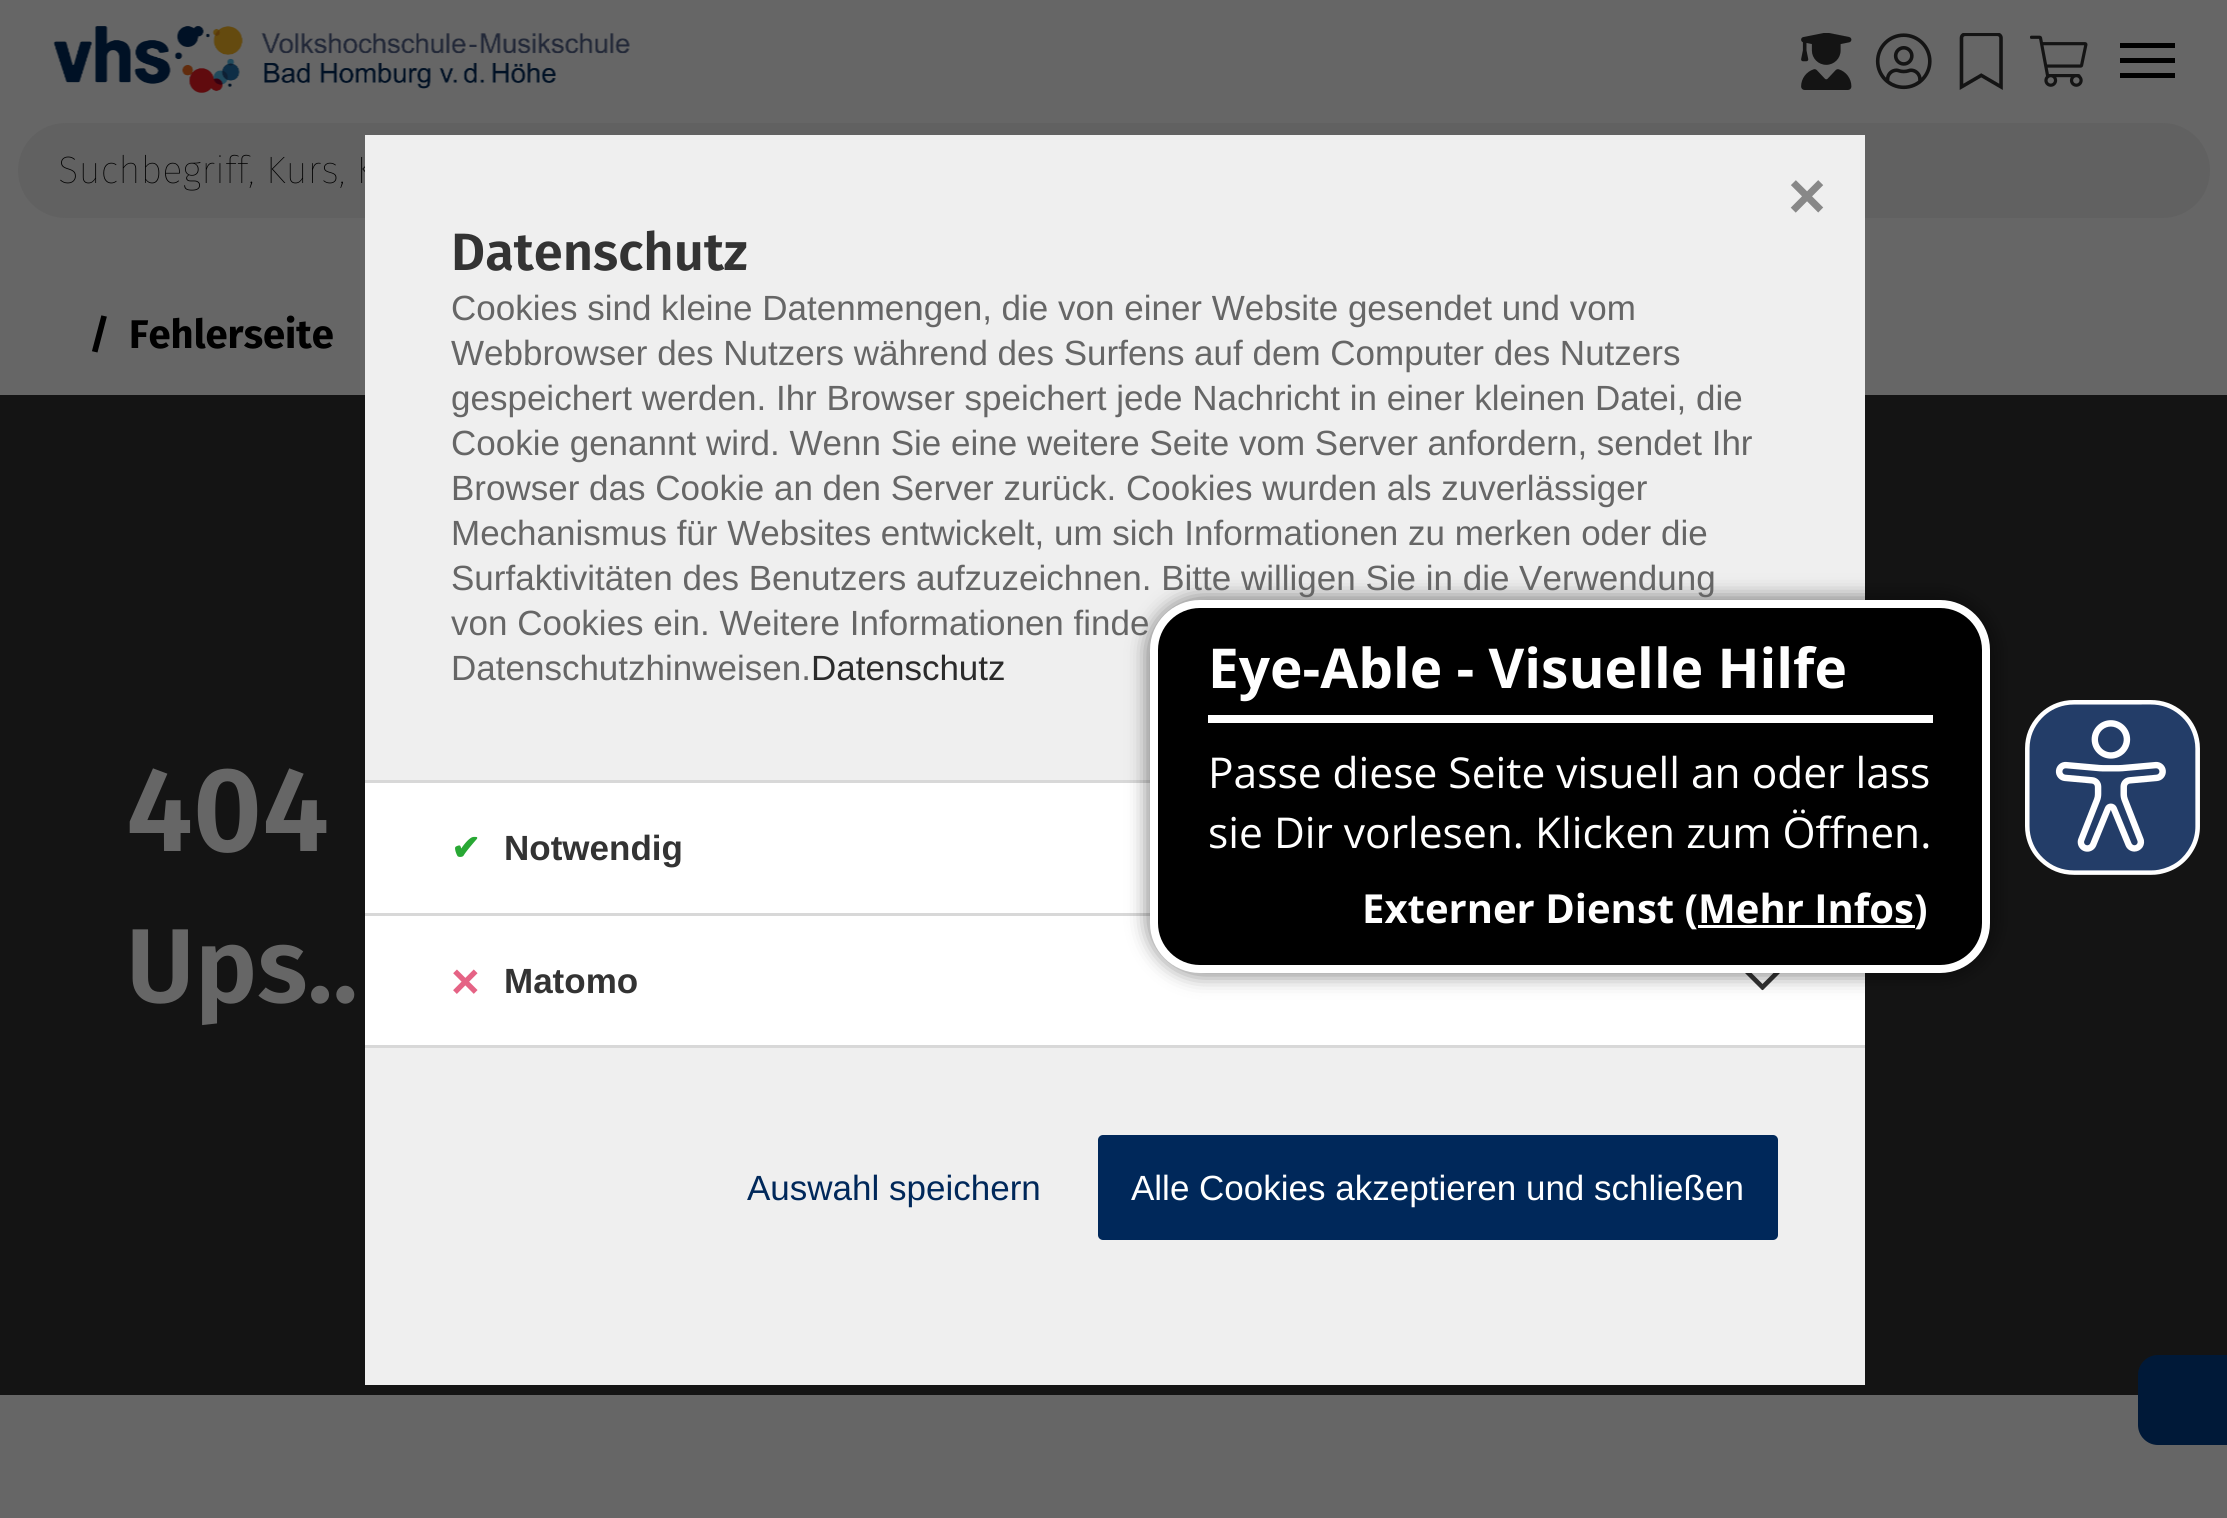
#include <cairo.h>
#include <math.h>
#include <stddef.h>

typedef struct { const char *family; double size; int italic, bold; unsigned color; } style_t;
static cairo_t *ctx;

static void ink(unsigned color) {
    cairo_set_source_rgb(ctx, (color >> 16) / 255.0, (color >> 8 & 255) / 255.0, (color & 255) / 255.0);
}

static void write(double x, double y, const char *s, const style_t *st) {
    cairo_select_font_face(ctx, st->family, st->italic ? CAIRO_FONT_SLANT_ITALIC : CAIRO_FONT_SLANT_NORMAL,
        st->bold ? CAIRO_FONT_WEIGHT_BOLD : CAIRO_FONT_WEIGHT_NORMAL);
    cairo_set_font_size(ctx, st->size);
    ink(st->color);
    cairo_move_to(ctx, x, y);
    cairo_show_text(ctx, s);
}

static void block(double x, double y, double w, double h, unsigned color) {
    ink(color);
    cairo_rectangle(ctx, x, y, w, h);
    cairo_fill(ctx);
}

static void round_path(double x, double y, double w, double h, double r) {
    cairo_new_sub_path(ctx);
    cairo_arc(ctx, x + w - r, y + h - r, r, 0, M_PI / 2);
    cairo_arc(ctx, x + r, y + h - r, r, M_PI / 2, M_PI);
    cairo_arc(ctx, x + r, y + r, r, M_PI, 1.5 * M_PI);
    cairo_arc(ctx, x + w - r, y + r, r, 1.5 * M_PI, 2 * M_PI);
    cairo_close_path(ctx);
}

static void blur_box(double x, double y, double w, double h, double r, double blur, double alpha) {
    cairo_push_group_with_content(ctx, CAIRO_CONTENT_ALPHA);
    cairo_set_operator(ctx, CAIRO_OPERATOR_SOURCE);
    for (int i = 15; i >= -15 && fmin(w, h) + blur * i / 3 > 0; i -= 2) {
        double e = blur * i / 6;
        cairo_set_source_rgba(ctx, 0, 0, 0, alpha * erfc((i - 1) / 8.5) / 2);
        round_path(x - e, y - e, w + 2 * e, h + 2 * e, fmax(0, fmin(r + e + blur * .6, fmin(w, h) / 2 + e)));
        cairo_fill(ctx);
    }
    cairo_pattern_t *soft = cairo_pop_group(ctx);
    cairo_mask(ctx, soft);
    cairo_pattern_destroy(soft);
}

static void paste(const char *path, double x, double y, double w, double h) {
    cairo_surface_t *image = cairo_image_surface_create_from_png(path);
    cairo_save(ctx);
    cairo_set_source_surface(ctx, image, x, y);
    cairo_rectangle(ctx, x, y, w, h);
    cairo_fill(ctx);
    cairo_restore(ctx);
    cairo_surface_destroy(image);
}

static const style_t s1 = {"Fira Sans ExtraLight", 38.25, 0, 0, 0x000000};
static const style_t s2 = {"Fira Sans", 40, 0, 1, 0x000000};
static const style_t s3 = {"Fira Sans SemiBold", 120, 0, 0, 0x666666};
static const style_t s4 = {"Fira Sans SemiBold", 105, 0, 0, 0x666666};
static const style_t s5 = {"Open Sans", 55, 0, 1, 0xffffff};
static const style_t s6 = {"Open Sans", 42.5, 0, 0, 0xffffff};
static const style_t s7 = {"Open Sans", 40, 0, 1, 0xffffff};
static const style_t s8 = {"Liberation Sans", 65, 0, 1, 0x888888};
static const style_t s9 = {"Fira Sans SemiBold", 52.5, 0, 0, 0x333333};
static const style_t s10 = {"Liberation Sans", 35, 0, 0, 0x666666};
static const style_t s11 = {"Liberation Sans", 35, 0, 0, 0x2b2b2b};
static const style_t s12 = {"DejaVu Sans", 35, 0, 1, 0x28a834};
static const style_t s13 = {"Liberation Sans", 35, 0, 1, 0x333333};
static const style_t s14 = {"Liberation Sans", 49, 0, 1, 0xe56385};
static const style_t s15 = {"Liberation Sans", 35, 0, 0, 0x00285a};
static const style_t s16 = {"Liberation Sans", 35, 0, 0, 0xffffff};

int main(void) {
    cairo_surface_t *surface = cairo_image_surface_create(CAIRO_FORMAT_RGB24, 2227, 1518);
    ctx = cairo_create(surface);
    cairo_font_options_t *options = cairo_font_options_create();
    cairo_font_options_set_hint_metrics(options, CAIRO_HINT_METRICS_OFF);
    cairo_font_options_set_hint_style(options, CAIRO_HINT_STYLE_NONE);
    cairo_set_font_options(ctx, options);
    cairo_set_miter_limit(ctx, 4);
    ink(0x666666);
    cairo_paint(ctx);
    paste("pic1.png", 53, 26, 577, 67);
    block(2120, 58, 55, 5, 0x000000);
    block(2120, 43, 55, 5, 0x000000);
    block(2120, 73, 55, 5, 0x000000);
    paste("pic2.png", 1801, 33, 51, 57);
    paste("pic3.png", 1875, 33, 57, 57);
    paste("pic4.png", 1959, 33, 44, 57);
    paste("pic5.png", 2030, 35, 58, 52);
    ink(0x616161);
    round_path(18, 123, 2192, 95, 47.5);
    cairo_fill(ctx);
    write(58, 183, "Suchbegriff, Kurs, K", &s1);
    write(89, 348, "/", &s2);
    write(129, 348, "Fehlerseite", &s2);
    block(0, 395, 2227, 1000, 0x141414);
    write(126, 851, "404", &s3);
    write(126, 1002, "Ups..", &s4);
    block(365, 135, 1500, 1250, 0xefefef);
    block(365, 780, 785, 3, 0xd8d8d8);
    block(365, 783, 1500, 262, 0xffffff);
    block(365, 913, 785, 3, 0xd8d8d8);
    paste("pic7.png", 1745, 973, 35, 18);
    ink(0x000000);
    blur_box(1148, 598, 845, 377, 53, 10, 0.5);
    ink(0x000000);
    round_path(1154, 604, 832, 365, 46);
    cairo_fill_preserve(ctx);
    ink(0xffffff);
    cairo_set_line_width(ctx, 8);
    cairo_stroke(ctx);
    block(1208, 715, 725, 8, 0xffffff);
    write(1208, 688, "Eye-Able - Visuelle Hilfe", &s5);
    write(1208, 788, "Passe diese Seite visuell an oder lass", &s6);
    write(1208, 848, "sie Dir vorlesen. Klicken zum Öffnen.", &s6);
    write(1362, 923, "Externer Dienst (Mehr Infos)", &s7);
    block(1698, 925, 217, 3, 0xffffff);
    paste("pic6.png", 2025, 700, 175, 175);
    ink(0x001938);
    cairo_new_path(ctx);
    cairo_move_to(ctx, 2158, 1355);
    cairo_line_to(ctx, 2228, 1355);
    cairo_line_to(ctx, 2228, 1445);
    cairo_line_to(ctx, 2158, 1445);
    cairo_curve_to(ctx, 2147, 1445, 2138, 1436, 2138, 1425);
    cairo_line_to(ctx, 2138, 1375);
    cairo_curve_to(ctx, 2138, 1364, 2147, 1355, 2158, 1355);
    cairo_close_path(ctx);
    cairo_fill(ctx);
    write(1788, 218, "×", &s8);
    write(451, 270, "Datenschutz", &s9);
    write(451, 320, "Cookies sind kleine Datenmengen, die von einer Website gesendet und vom", &s10);
    write(451, 365, "Webbrowser des Nutzers während des Surfens auf dem Computer des Nutzers", &s10);
    write(451, 410, "gespeichert werden. Ihr Browser speichert jede Nachricht in einer kleinen Datei, die", &s10);
    write(451, 455, "Cookie genannt wird. Wenn Sie eine weitere Seite vom Server anfordern, sendet Ihr", &s10);
    write(451, 500, "Browser das Cookie an den Server zurück. Cookies wurden als zuverlässiger", &s10);
    write(451, 545, "Mechanismus für Websites entwickelt, um sich Informationen zu merken oder die", &s10);
    write(451, 590, "Surfaktivitäten des Benutzers aufzuzeichnen. Bitte willigen Sie in die Verwendung", &s10);
    write(451, 635, "von Cookies ein. Weitere Informationen finde", &s10);
    write(451, 680, "Datenschutzhinweisen.", &s10);
    write(811, 680, "Datenschutz", &s11);
    write(451, 860, "✔", &s12);
    write(504, 860, "Notwendig", &s13);
    block(365, 1045, 1500, 3, 0xd8d8d8);
    write(451, 998, "×", &s14);
    write(504, 993, "Matomo", &s13);
    write(747, 1200, "Auswahl speichern", &s15);
    round_path(1098, 1135, 680, 105, 5);
    cairo_fill(ctx);
    write(1131, 1200, "Alle Cookies akzeptieren und schließen", &s16);
    cairo_surface_write_to_png(surface, "screenshot.png");
    cairo_font_options_destroy(options);
    cairo_destroy(ctx);
    cairo_surface_destroy(surface);
    return 0;
}
